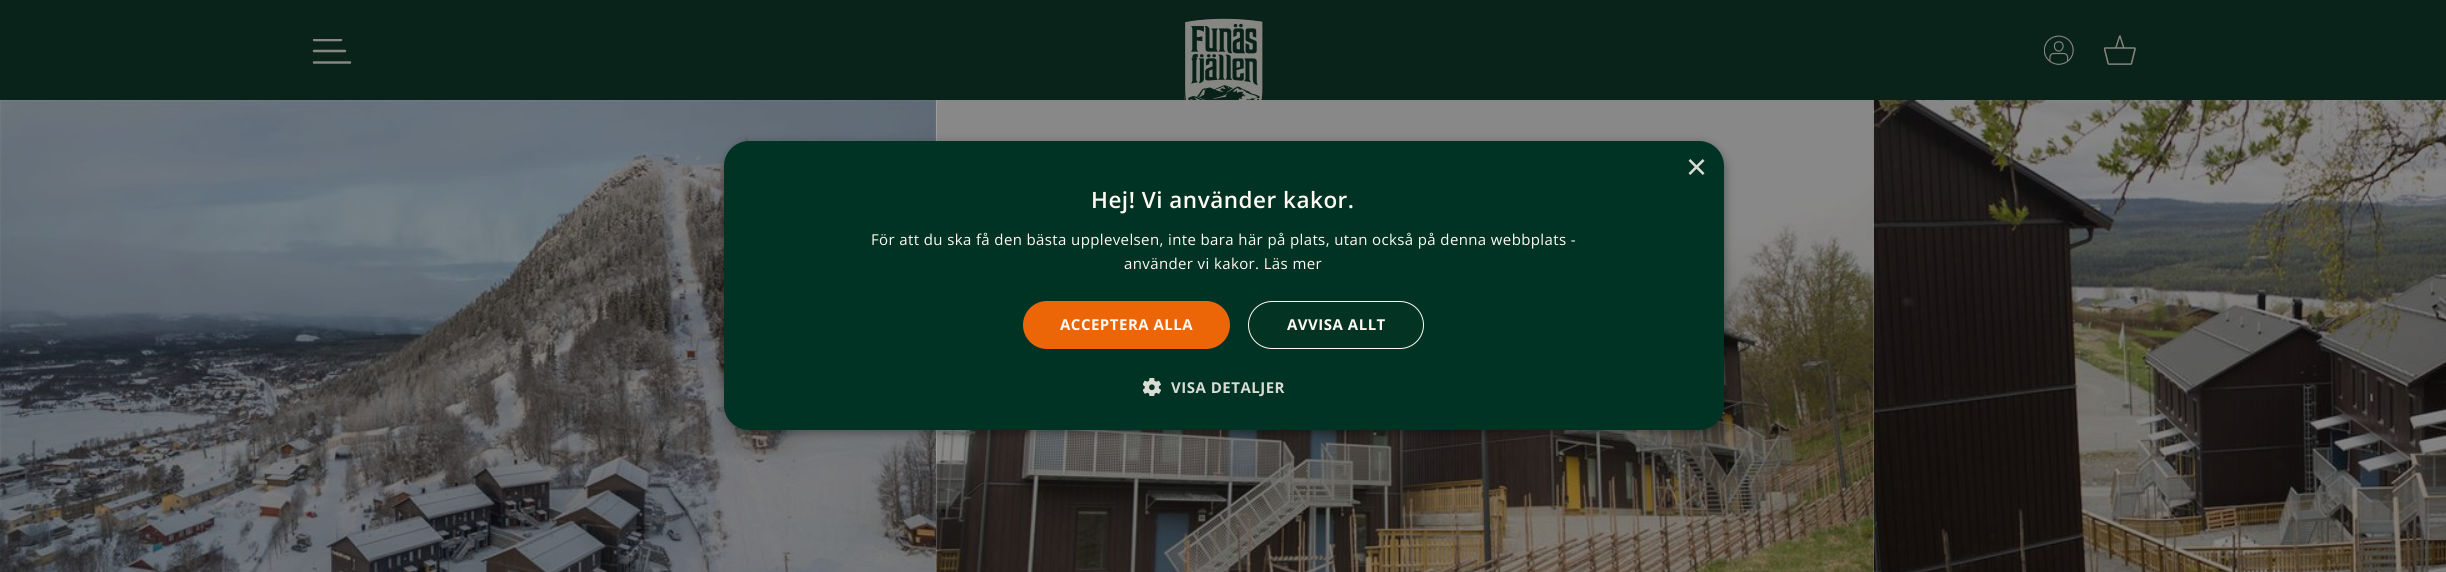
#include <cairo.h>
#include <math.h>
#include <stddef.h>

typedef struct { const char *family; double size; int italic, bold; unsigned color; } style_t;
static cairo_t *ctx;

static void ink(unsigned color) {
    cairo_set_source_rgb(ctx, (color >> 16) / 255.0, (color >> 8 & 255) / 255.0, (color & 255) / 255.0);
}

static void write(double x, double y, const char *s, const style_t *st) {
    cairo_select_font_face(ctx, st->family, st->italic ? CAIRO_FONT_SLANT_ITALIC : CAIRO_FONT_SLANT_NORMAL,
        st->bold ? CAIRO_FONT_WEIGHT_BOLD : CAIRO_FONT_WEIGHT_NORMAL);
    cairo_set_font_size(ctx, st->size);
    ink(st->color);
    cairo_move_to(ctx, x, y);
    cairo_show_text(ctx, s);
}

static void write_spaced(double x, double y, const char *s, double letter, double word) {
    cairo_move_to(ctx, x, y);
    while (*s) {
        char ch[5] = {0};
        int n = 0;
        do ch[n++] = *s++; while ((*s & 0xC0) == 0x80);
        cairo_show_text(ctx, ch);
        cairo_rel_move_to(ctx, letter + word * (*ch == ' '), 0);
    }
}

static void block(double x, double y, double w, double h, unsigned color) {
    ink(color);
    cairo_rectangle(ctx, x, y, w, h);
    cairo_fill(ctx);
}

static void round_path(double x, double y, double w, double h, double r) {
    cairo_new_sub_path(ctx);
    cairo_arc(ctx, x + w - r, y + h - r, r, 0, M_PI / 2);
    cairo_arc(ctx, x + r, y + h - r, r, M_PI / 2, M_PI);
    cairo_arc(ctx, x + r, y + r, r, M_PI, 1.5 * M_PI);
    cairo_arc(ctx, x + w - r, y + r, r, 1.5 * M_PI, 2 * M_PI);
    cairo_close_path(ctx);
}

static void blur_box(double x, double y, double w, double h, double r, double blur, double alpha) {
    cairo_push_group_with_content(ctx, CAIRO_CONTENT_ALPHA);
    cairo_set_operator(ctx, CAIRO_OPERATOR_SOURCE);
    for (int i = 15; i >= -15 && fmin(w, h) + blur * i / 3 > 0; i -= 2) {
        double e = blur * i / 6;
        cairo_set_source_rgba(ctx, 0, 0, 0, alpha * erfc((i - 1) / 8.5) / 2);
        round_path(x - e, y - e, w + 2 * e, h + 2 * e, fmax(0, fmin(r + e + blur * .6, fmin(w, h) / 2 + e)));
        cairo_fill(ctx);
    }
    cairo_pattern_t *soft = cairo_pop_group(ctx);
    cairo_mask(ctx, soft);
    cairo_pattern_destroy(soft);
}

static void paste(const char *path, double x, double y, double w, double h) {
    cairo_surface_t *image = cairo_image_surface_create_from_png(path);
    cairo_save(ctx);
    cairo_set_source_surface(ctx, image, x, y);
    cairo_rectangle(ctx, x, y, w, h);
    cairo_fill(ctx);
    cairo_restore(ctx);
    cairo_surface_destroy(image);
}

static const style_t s1 = {"Liberation Sans", 36, 0, 0, 0xd9dcd4};

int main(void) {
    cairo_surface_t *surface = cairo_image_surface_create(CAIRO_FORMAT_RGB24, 2446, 572);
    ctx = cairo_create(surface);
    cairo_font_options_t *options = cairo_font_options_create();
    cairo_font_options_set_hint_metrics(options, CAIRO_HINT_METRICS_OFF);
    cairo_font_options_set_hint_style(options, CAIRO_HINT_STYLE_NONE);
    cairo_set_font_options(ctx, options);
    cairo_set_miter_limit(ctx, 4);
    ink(0xffffff);
    cairo_paint(ctx);
    block(0, 0, 2446, 100, 0x09221a);
    cairo_save(ctx);
    cairo_rectangle(ctx, 313, 39, 38, 25);
    cairo_clip(ctx);
    cairo_new_path(ctx);
    cairo_move_to(ctx, 314, 40);
    cairo_line_to(ctx, 341, 40);
    ink(0x888682);
    cairo_set_line_width(ctx, 2.5);
    cairo_set_line_cap(ctx, CAIRO_LINE_CAP_ROUND);
    cairo_stroke(ctx);
    cairo_restore(ctx);
    cairo_new_path(ctx);
    cairo_move_to(ctx, 314, 51);
    cairo_line_to(ctx, 345, 51);
    cairo_move_to(ctx, 314, 62.5);
    cairo_line_to(ctx, 350, 62.5);
    ink(0x888682);
    cairo_set_line_width(ctx, 2.5);
    cairo_set_line_cap(ctx, CAIRO_LINE_CAP_ROUND);
    cairo_stroke(ctx);
    paste("pic1.png", 1184, 18, 79, 82);
    paste("pic2.png", 2044, 35, 30, 30);
    paste("pic3.png", 2104, 35, 32, 30);
    paste("pic4.png", 0, 100, 937, 472);
    paste("pic5.png", 936, 100, 938, 472);
    paste("pic6.png", 1873, 100, 573, 472);
    ink(0x000000);
    blur_box(725, 144, 1000, 289, 25, 5, 0.35);
    ink(0x003323);
    round_path(724, 141, 1000, 289, 25);
    cairo_fill(ctx);
    write(1686, 179, "×", &s1);
    cairo_select_font_face(ctx, "Open Sans SemiBold", CAIRO_FONT_SLANT_NORMAL, CAIRO_FONT_WEIGHT_NORMAL);
    cairo_set_font_size(ctx, 22.5);
    ink(0xfffaf3);
    write_spaced(1091, 208, "Hej! Vi använder kakor.", 0.5, 0);
    cairo_select_font_face(ctx, "Open Sans", CAIRO_FONT_SLANT_NORMAL, CAIRO_FONT_WEIGHT_NORMAL);
    cairo_set_font_size(ctx, 15);
    write_spaced(871, 245, "För att du ska få den bästa upplevelsen, inte bara här på plats, utan också på denna webbplats -", 0.38, 0);
    write_spaced(1124, 269, "använder vi kakor. Läs mer", 0.38, 0);
    ink(0xec6608);
    round_path(1023, 301, 207, 48, 24);
    cairo_fill(ctx);
    cairo_select_font_face(ctx, "Open Sans", CAIRO_FONT_SLANT_NORMAL, CAIRO_FONT_WEIGHT_BOLD);
    ink(0xfffaf3);
    write_spaced(1060, 330, "ACCEPTERA ALLA", 0.5, 0);
    ink(0x033323);
    round_path(1248.5, 301.5, 175, 47, 23.5);
    cairo_fill_preserve(ctx);
    ink(0xfffaf3);
    cairo_set_line_width(ctx, 1);
    cairo_set_line_cap(ctx, CAIRO_LINE_CAP_BUTT);
    cairo_stroke(ctx);
    write_spaced(1287, 330, "AVVISA ALLT", 0.5, 0);
    paste("pic7.png", 1143, 378, 18, 18);
    ink(0xd9dcd4);
    write_spaced(1171, 393, "VISA DETALJER", 0.5, 0);
    cairo_surface_write_to_png(surface, "screenshot.png");
    cairo_font_options_destroy(options);
    cairo_destroy(ctx);
    cairo_surface_destroy(surface);
    return 0;
}
